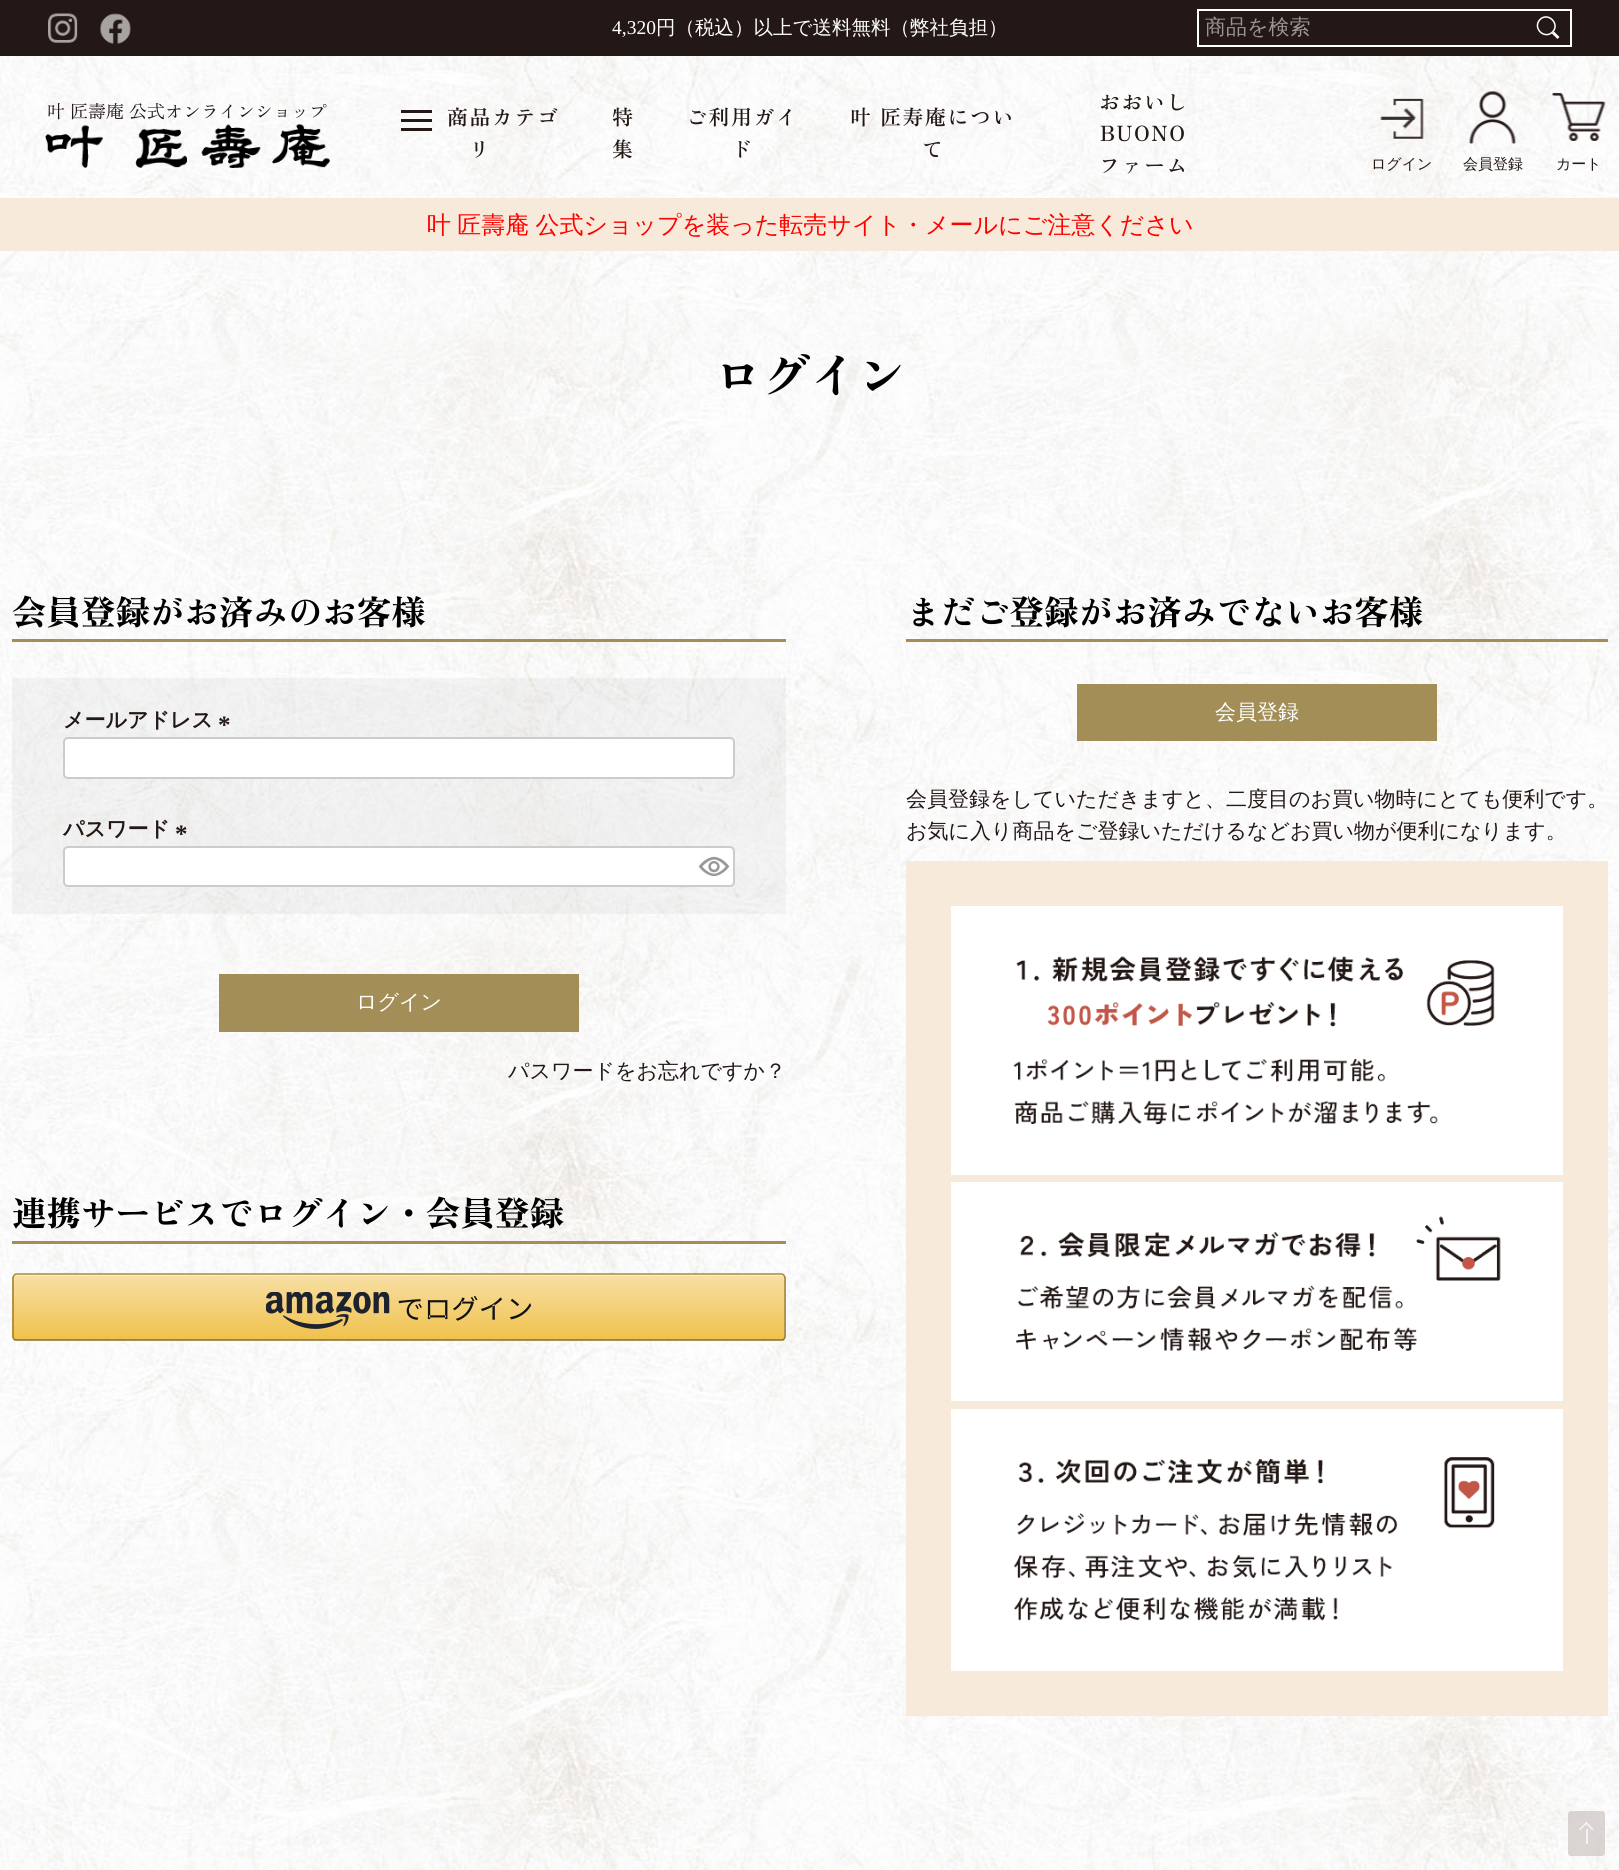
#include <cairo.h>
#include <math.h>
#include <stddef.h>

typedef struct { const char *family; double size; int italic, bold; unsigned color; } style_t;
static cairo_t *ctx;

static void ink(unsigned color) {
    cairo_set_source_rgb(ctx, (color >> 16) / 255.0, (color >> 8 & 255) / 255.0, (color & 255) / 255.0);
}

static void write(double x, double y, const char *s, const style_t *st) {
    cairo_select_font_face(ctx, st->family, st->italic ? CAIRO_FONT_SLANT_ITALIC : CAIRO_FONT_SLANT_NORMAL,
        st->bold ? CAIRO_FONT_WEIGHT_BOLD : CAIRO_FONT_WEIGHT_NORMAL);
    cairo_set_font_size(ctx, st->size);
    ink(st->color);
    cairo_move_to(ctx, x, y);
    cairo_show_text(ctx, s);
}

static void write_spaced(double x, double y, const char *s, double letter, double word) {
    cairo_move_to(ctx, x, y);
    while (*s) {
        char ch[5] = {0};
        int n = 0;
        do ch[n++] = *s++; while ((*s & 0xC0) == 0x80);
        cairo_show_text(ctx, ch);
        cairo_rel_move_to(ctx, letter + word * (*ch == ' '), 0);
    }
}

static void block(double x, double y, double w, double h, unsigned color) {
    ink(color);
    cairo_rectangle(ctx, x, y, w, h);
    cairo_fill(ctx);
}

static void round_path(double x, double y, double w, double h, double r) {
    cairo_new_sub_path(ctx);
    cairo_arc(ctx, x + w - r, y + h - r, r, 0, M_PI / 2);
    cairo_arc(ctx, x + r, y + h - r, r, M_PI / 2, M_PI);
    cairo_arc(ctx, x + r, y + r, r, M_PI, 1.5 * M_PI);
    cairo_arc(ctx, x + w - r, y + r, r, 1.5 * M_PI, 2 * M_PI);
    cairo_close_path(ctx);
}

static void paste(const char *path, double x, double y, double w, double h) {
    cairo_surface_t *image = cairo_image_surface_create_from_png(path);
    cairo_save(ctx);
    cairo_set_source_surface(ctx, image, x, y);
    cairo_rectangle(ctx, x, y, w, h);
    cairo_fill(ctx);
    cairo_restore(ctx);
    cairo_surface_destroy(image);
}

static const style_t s1 = {"Liberation Serif", 19.5, 0, 0, 0xffffff};
static const style_t s2 = {"WenQuanYi Zen Hei Medium", 19.5, 0, 0, 0xffffff};
static const style_t s3 = {"WenQuanYi Zen Hei Medium", 21, 0, 0, 0x9a9593};
static const style_t s4 = {"Zen Old Mincho", 18, 0, 0, 0x231815};
static const style_t s5 = {"WenQuanYi Zen Hei Medium", 15, 0, 0, 0x231815};
static const style_t s6 = {"Zen Old Mincho Black", 48, 0, 0, 0x000000};
static const style_t s7 = {"Zen Old Mincho Black", 34.5, 0, 0, 0x000000};
static const style_t s8 = {"WenQuanYi Zen Hei", 21, 0, 1, 0x231815};
static const style_t s9 = {"Liberation Serif", 25, 0, 1, 0x231815};
static const style_t s10 = {"WenQuanYi Zen Hei Medium", 21, 0, 0, 0xffffff};
static const style_t s11 = {"WenQuanYi Zen Hei Medium", 21, 0, 0, 0x231815};

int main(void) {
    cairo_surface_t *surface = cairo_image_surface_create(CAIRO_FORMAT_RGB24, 1619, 1870);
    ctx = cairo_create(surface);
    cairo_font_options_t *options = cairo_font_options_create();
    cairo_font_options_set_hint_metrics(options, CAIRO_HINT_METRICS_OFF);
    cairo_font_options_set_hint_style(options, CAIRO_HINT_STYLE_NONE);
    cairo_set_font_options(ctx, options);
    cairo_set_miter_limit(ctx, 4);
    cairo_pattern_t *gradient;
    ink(0xffffff);
    cairo_paint(ctx);
    paste("pic1.png", 0, 56, 1619, 1814);
    block(0, 0, 1619, 56, 0x231815);
    paste("pic2.png", 48, 13, 30, 30);
    paste("pic3.png", 100, 13, 31, 31);
    write(612, 34, "4,320", &s1);
    write(656, 34, "円（税込）以上で送料無料（弊社負担）", &s2);
    cairo_rectangle(ctx, 1198, 10, 373, 36);
    cairo_stroke(ctx);
    write(1205, 34, "商品を検索", &s3);
    ink(0xffffff);
    cairo_new_path(ctx);
    cairo_move_to(ctx, 1542.5, 24.5);
    cairo_line_to(ctx, 1545, 22.5);
    cairo_line_to(ctx, 1559.5, 37);
    cairo_line_to(ctx, 1557.5, 39);
    cairo_close_path(ctx);
    cairo_fill(ctx);
    ink(0x231815);
    cairo_new_path(ctx);
    cairo_move_to(ctx, 1539.5, 19);
    cairo_curve_to(ctx, 1548.5, 10.5, 1561.5, 24, 1553, 32.5);
    cairo_curve_to(ctx, 1544, 41.5, 1531, 28, 1539.5, 19);
    cairo_close_path(ctx);
    cairo_fill(ctx);
    cairo_new_path(ctx);
    cairo_move_to(ctx, 1540, 19.5);
    cairo_curve_to(ctx, 1548, 11.5, 1560.5, 24, 1552.5, 32);
    cairo_curve_to(ctx, 1544.5, 40, 1532, 28, 1540, 19.5);
    cairo_close_path(ctx);
    ink(0xffffff);
    cairo_set_line_width(ctx, 1.5);
    cairo_stroke(ctx);
    write(47, 118, "叶 匠壽庵 公式オンラインショップ", &s4);
    paste("pic4.png", 45, 124, 285, 44);
    block(401, 110, 31, 3, 0x231815);
    block(401, 128, 31, 3, 0x231815);
    block(401, 119, 31, 3, 0x231815);
    cairo_select_font_face(ctx, "Zen Old Mincho SemiBold", CAIRO_FONT_SLANT_NORMAL, CAIRO_FONT_WEIGHT_NORMAL);
    cairo_set_font_size(ctx, 21);
    write_spaced(447, 125, "商品カテゴ", 1.5, 0);
    write_spaced(469, 157, "リ", 1.5, 0);
    write_spaced(612, 125, "特", 1.5, 0);
    write_spaced(612, 157, "集", 1.5, 0);
    write_spaced(686, 125, "ご利用ガイ", 1.5, 0);
    write_spaced(731, 157, "ド", 1.5, 0);
    write_spaced(850, 125, "叶 匠寿庵につい", 1.5, 0);
    write_spaced(922, 157, "て", 1.5, 0);
    write_spaced(1099, 110, "おおいし", 1.5, 0);
    write_spaced(1100, 141, "BUONO", 1.5, 0);
    write_spaced(1099, 173, "ファーム", 1.5, 0);
    paste("pic5.png", 1380, 98, 44, 41);
    write(1371, 169, "ログイン", &s5);
    paste("pic6.png", 1469, 91, 47, 53);
    write(1463, 169, "会員登録", &s5);
    paste("pic7.png", 1552, 93, 54, 48);
    write(1556, 169, "カート", &s5);
    block(0, 198, 1619, 53, 0xf8eada);
    cairo_set_font_size(ctx, 24);
    ink(0xff0000);
    write_spaced(427, 233, "叶 匠壽庵 公式ショップを装った転売サイト・メールにご注意ください", 0, -1);
    write(714, 393, "ログイン", &s6);
    block(12, 639, 774, 3, 0xa28e56);
    write(12, 625, "会員登録がお済みのお客様", &s7);
    cairo_set_source_rgba(ctx, 0.494, 0.494, 0.494, 0.08);
    cairo_rectangle(ctx, 12, 678, 774, 236);
    cairo_fill(ctx);
    write(63, 727, "メールアドレス", &s8);
    write(218, 733, "*", &s9);
    ink(0xffffff);
    round_path(64, 738, 670, 40, 4);
    cairo_fill_preserve(ctx);
    ink(0xcccccc);
    cairo_set_line_width(ctx, 2);
    cairo_stroke(ctx);
    write(63, 836, "パスワード", &s8);
    write(175, 842, "*", &s9);
    ink(0xffffff);
    round_path(64, 847, 670, 39, 4);
    cairo_fill_preserve(ctx);
    ink(0xcccccc);
    cairo_stroke(ctx);
    paste("pic8.png", 698, 856, 32, 21);
    block(219, 974, 360, 58, 0xa28e56);
    write(356, 1009, "ログイン", &s10);
    write(508, 1078, "パスワードをお忘れですか？", &s11);
    block(12, 1241, 774, 3, 0xa28e56);
    write(12, 1226, "連携サービスでログイン・会員登録", &s7);
    cairo_save(ctx);
    round_path(12, 1274, 774, 67, 5);
    cairo_clip(ctx);
    gradient = cairo_pattern_create_linear(399, 1275, 399, 1340);
    cairo_pattern_add_color_stop_rgba(gradient, 0, 0.969, 0.875, 0.647, 1);
    cairo_pattern_add_color_stop_rgba(gradient, 1, 0.941, 0.757, 0.294, 1);
    cairo_set_source(ctx, gradient);
    cairo_pattern_destroy(gradient);
    cairo_rectangle(ctx, 12, 1275, 774, 65);
    cairo_fill(ctx);
    cairo_restore(ctx);
    cairo_set_source_rgba(ctx, 1, 1, 1, 0.4);
    cairo_new_path(ctx);
    cairo_move_to(ctx, 16, 1276);
    cairo_line_to(ctx, 782, 1276);
    cairo_curve_to(ctx, 783, 1276, 784, 1278, 784, 1280);
    cairo_line_to(ctx, 784, 1339);
    cairo_curve_to(ctx, 785, 1339, 785, 1338, 785, 1337);
    cairo_line_to(ctx, 785, 1278);
    cairo_curve_to(ctx, 785, 1276, 784, 1275, 782, 1275);
    cairo_line_to(ctx, 17, 1275);
    cairo_curve_to(ctx, 15, 1275, 14, 1276, 14, 1278);
    cairo_line_to(ctx, 14, 1280);
    cairo_curve_to(ctx, 14, 1278, 15, 1276, 16, 1276);
    cairo_close_path(ctx);
    cairo_fill(ctx);
    cairo_new_path(ctx);
    cairo_move_to(ctx, 14, 1275.5);
    cairo_curve_to(ctx, 14.5, 1274.5, 15.5, 1274, 16.5, 1274);
    cairo_line_to(ctx, 781.5, 1274);
    cairo_curve_to(ctx, 782.5, 1274, 783.5, 1274.5, 784, 1275.5);
    ink(0xa88734);
    cairo_set_line_width(ctx, 1.5);
    cairo_stroke(ctx);
    cairo_new_path(ctx);
    cairo_move_to(ctx, 784, 1275.5);
    cairo_line_to(ctx, 785, 1277.5);
    cairo_line_to(ctx, 785, 1337);
    cairo_line_to(ctx, 784, 1339);
    ink(0x9c7e31);
    cairo_stroke(ctx);
    cairo_new_path(ctx);
    cairo_move_to(ctx, 784, 1339);
    cairo_curve_to(ctx, 783.5, 1340, 782.5, 1340, 781.5, 1340);
    cairo_line_to(ctx, 16.5, 1340);
    cairo_curve_to(ctx, 15.5, 1340, 14.5, 1340, 14, 1339);
    ink(0x846a29);
    cairo_stroke(ctx);
    cairo_new_path(ctx);
    cairo_move_to(ctx, 14, 1339);
    cairo_line_to(ctx, 13, 1337);
    cairo_line_to(ctx, 13, 1277.5);
    cairo_line_to(ctx, 14, 1275.5);
    ink(0x9c7e31);
    cairo_stroke(ctx);
    paste("pic9.png", 266, 1292, 266, 37);
    block(906, 639, 702, 3, 0xa28e56);
    write(906, 625, "まだご登録がお済みでないお客様", &s7);
    block(1077, 684, 360, 57, 0xa28e56);
    write(1215, 719, "会員登録", &s10);
    write(906, 806, "会員登録をしていただきますと、二度目のお買い物時にとても便利です。", &s11);
    write(906, 838, "お気に入り商品をご登録いただけるなどお買い物が便利になります。", &s11);
    block(906, 861, 702, 855, 0xf8eada);
    block(951, 906, 612, 269, 0xffffff);
    paste("pic10.png", 1013, 956, 482, 169);
    block(951, 1182, 612, 219, 0xffffff);
    paste("pic11.png", 1015, 1216, 486, 135);
    block(951, 1409, 612, 262, 0xffffff);
    paste("pic12.png", 1013, 1457, 482, 164);
    cairo_set_source_rgba(ctx, 0.8, 0.765, 0.761, 0.7);
    round_path(1568, 1811, 37, 45, 3);
    cairo_fill(ctx);
    ink(0xf4f2f2);
    cairo_new_path(ctx);
    cairo_move_to(ctx, 1586.5, 1822);
    cairo_line_to(ctx, 1593.5, 1829);
    cairo_line_to(ctx, 1592.5, 1830.5);
    cairo_line_to(ctx, 1585, 1823);
    cairo_close_path(ctx);
    cairo_fill(ctx);
    cairo_set_source_rgba(ctx, 1, 1, 1, 0.7);
    cairo_new_path(ctx);
    cairo_move_to(ctx, 1586.5, 1822);
    cairo_line_to(ctx, 1587.5, 1823);
    cairo_line_to(ctx, 1580, 1830.5);
    cairo_line_to(ctx, 1579, 1829);
    cairo_close_path(ctx);
    cairo_fill(ctx);
    cairo_rectangle(ctx, 1586, 1829, 2, 15);
    cairo_fill(ctx);
    cairo_surface_write_to_png(surface, "screenshot.png");
    cairo_font_options_destroy(options);
    cairo_destroy(ctx);
    cairo_surface_destroy(surface);
    return 0;
}
